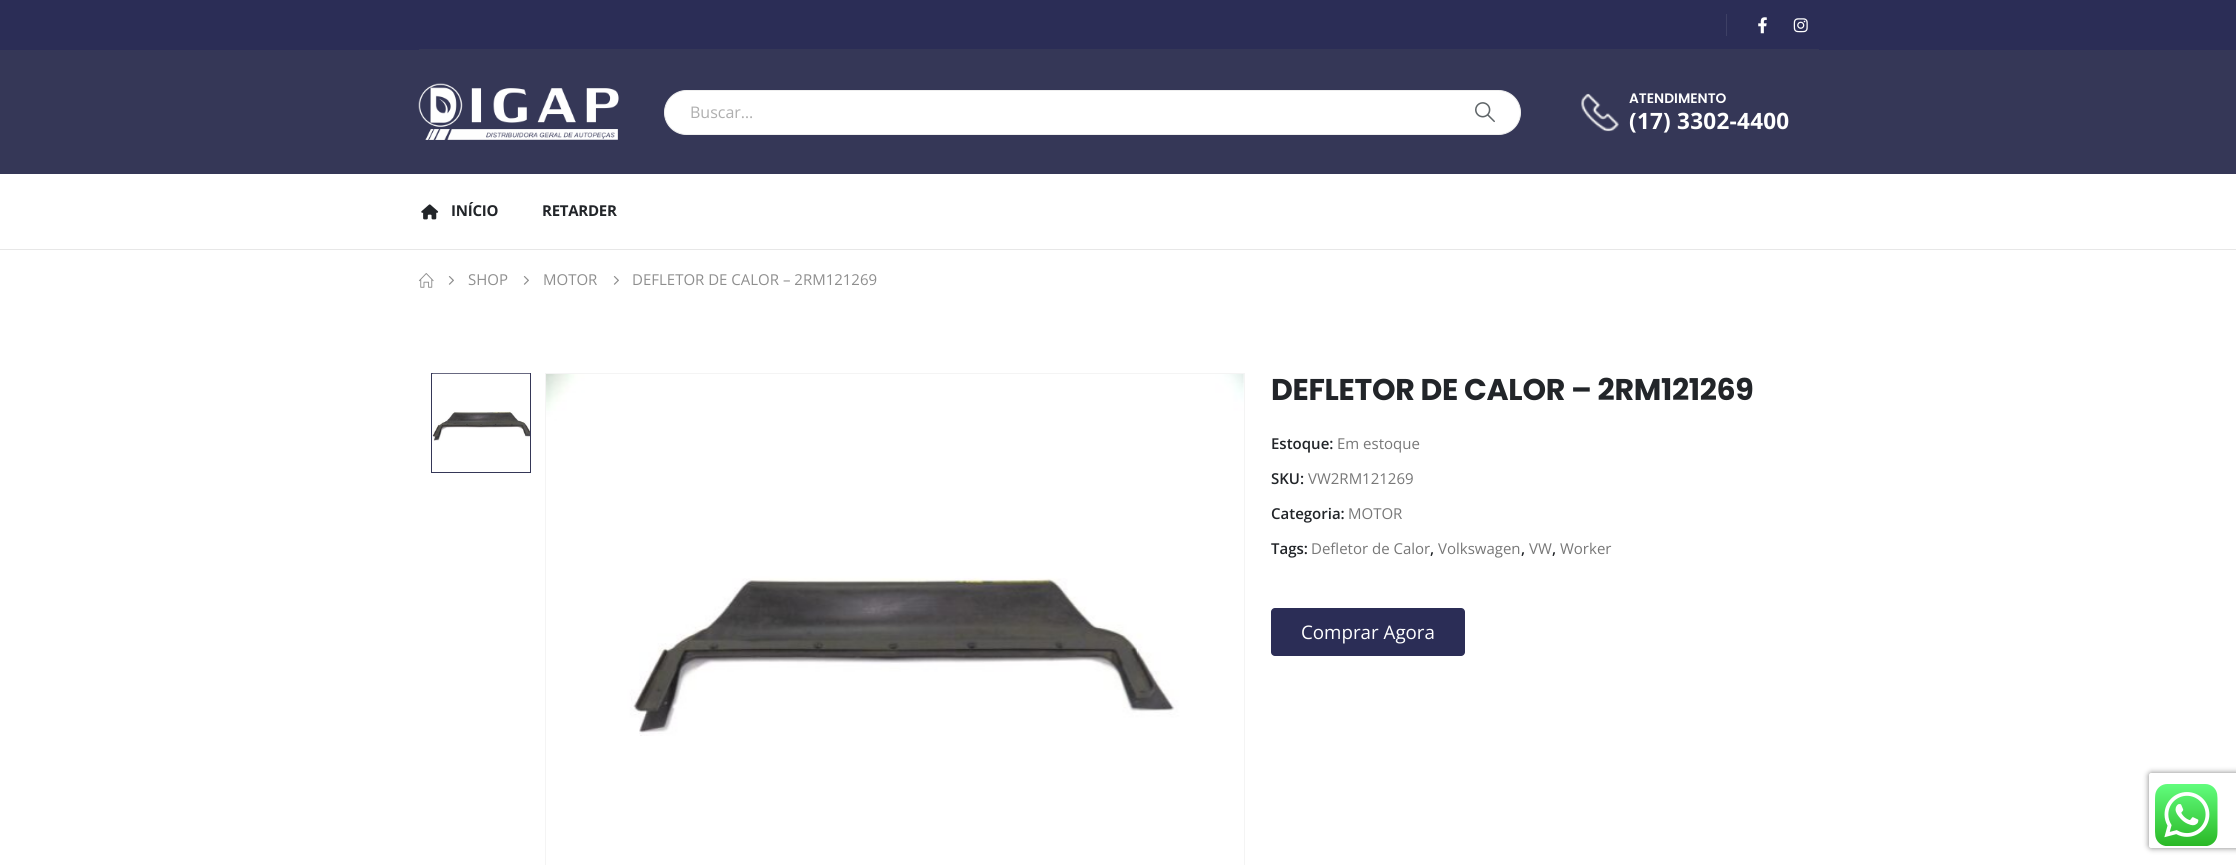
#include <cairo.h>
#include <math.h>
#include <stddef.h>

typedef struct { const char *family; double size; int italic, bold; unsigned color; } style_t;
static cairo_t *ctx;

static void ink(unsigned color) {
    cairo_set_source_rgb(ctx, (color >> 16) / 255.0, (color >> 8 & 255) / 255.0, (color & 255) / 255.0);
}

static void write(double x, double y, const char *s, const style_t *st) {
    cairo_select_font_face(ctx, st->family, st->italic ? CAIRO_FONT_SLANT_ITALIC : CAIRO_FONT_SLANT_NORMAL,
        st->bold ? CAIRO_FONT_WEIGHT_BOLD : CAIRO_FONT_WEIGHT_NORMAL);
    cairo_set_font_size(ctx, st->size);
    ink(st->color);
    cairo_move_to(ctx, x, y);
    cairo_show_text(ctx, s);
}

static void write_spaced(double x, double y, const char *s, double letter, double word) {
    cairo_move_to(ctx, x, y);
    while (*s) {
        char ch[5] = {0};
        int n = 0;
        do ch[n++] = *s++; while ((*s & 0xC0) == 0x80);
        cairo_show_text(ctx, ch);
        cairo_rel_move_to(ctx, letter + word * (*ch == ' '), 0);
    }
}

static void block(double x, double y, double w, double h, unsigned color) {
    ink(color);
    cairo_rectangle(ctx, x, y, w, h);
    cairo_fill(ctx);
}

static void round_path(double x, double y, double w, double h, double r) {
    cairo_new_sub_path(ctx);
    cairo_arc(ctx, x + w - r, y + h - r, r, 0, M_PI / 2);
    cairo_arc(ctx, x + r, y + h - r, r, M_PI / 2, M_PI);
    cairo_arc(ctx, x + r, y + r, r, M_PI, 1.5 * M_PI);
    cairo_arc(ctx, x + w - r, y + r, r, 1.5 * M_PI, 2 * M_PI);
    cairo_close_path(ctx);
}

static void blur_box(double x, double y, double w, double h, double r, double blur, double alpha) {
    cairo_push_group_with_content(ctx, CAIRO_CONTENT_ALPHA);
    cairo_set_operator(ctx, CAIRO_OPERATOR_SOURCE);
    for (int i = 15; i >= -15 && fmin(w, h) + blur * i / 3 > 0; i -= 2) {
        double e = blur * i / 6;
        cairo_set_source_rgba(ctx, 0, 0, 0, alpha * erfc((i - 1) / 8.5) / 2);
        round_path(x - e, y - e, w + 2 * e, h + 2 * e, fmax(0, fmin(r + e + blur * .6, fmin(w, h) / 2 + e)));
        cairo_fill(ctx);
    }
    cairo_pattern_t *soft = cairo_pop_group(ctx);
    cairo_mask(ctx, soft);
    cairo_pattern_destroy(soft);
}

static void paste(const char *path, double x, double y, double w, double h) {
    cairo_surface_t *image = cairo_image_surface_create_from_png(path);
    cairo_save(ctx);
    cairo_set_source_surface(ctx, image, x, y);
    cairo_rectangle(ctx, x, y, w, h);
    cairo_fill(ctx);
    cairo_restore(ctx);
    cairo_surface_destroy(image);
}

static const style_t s1 = {"Open Sans", 16, 0, 0, 0xafafaf};
static const style_t s2 = {"Poppins SemiBold", 13.75, 0, 0, 0xffffff};
static const style_t s3 = {"Open Sans", 15, 0, 0, 0x8e8e8e};
static const style_t s4 = {"Open Sans SemiBold", 15, 0, 0, 0x222529};
static const style_t s5 = {"Open Sans", 15, 0, 0, 0x777777};
static const style_t s6 = {"Open Sans", 18.75, 0, 0, 0xffffff};

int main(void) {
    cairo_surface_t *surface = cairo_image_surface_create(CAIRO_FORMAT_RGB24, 2236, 865);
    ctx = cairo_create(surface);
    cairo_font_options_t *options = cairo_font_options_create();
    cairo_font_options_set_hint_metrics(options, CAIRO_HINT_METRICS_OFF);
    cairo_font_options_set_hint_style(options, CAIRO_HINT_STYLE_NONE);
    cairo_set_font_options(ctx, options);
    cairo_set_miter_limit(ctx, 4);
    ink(0xffffff);
    cairo_paint(ctx);
    block(0, 249, 2236, 1, 0xe7e7e7);
    block(0, 0, 2236, 50, 0x2b2d56);
    block(1726, 14, 1, 22, 0x3e4065);
    paste("pic1.png", 1758, 17, 9, 17);
    paste("pic2.png", 1793, 18, 15, 15);
    block(419, 49, 1400, 1, 0x353757);
    block(0, 50, 2236, 124, 0x353757);
    paste("pic3.png", 418, 83, 201, 57);
    ink(0xffffff);
    round_path(664.5, 90.5, 856, 44, 22);
    cairo_fill_preserve(ctx);
    ink(0xeeeeee);
    cairo_set_line_width(ctx, 1);
    cairo_stroke(ctx);
    write(690, 118, "Buscar…", &s1);
    paste("pic4.png", 1475, 102, 20, 21);
    paste("pic5.png", 1581, 93, 38, 39);
    write(1629, 103, "ATENDIMENTO", &s2);
    cairo_select_font_face(ctx, "Open Sans", CAIRO_FONT_SLANT_NORMAL, CAIRO_FONT_WEIGHT_BOLD);
    cairo_set_font_size(ctx, 22.5);
    write_spaced(1629, 129, "(17) 3302-4400", 0.25, 0);
    paste("pic6.png", 421, 204, 18, 16);
    cairo_set_font_size(ctx, 15);
    ink(0x222529);
    write_spaced(451, 216, "INÍCIO", -0.25, 0);
    write_spaced(542, 216, "RETARDER", -0.25, 0);
    paste("pic7.png", 418, 273, 16, 15);
    paste("pic8.png", 448, 276, 6, 9);
    write(468, 285, "SHOP", &s3);
    paste("pic8.png", 523, 276, 6, 9);
    write(543, 285, "MOTOR", &s3);
    paste("pic8.png", 613, 276, 6, 9);
    write(632, 285, "DEFLETOR DE CALOR – 2RM121269", &s3);
    cairo_rectangle(ctx, 431.5, 373.5, 99, 99);
    ink(0x353757);
    cairo_stroke(ctx);
    paste("pic9.png", 432, 373, 98, 68);
    cairo_rectangle(ctx, 545.5, 373.5, 699, 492);
    ink(0xf4f4f4);
    cairo_stroke(ctx);
    paste("pic10.png", 546, 374, 698, 362);
    cairo_select_font_face(ctx, "Poppins", CAIRO_FONT_SLANT_NORMAL, CAIRO_FONT_WEIGHT_BOLD);
    cairo_set_font_size(ctx, 30);
    ink(0x222529);
    write_spaced(1271, 400, "DEFLETOR DE CALOR – 2RM121269", -0.3, 0);
    write(1271, 449, "Estoque:", &s4);
    write(1337, 449, "Em estoque", &s5);
    write(1271, 484, "SKU:", &s4);
    write(1308, 484, "VW2RM121269", &s5);
    write(1271, 519, "Categoria:", &s4);
    write(1348, 519, "MOTOR", &s5);
    write(1271, 554, "Tags:", &s4);
    write(1311, 554, "Defletor de Calor", &s5);
    write(1430, 554, ",", &s4);
    write(1438, 554, "Volkswagen", &s5);
    write(1521, 554, ",", &s4);
    write(1529, 554, "VW", &s5);
    write(1552, 554, ",", &s4);
    write(1560, 554, "Worker", &s5);
    ink(0x2b2d56);
    round_path(1271, 608, 194, 48, 4);
    cairo_fill(ctx);
    write(1301, 639, "Comprar Agora", &s6);
    cairo_save(ctx);
    cairo_set_fill_rule(ctx, CAIRO_FILL_RULE_EVEN_ODD);
    cairo_new_path(ctx);
    cairo_move_to(ctx, 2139, 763);
    cairo_line_to(ctx, 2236, 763);
    cairo_line_to(ctx, 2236, 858);
    cairo_line_to(ctx, 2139, 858);
    cairo_close_path(ctx);
    cairo_move_to(ctx, 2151.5, 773);
    cairo_line_to(ctx, 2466.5, 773);
    cairo_curve_to(ctx, 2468, 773, 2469, 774, 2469, 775.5);
    cairo_line_to(ctx, 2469, 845.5);
    cairo_curve_to(ctx, 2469, 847, 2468, 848, 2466.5, 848);
    cairo_line_to(ctx, 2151.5, 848);
    cairo_curve_to(ctx, 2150, 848, 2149, 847, 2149, 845.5);
    cairo_line_to(ctx, 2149, 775.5);
    cairo_curve_to(ctx, 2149, 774, 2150, 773, 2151.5, 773);
    cairo_close_path(ctx);
    cairo_clip(ctx);
    ink(0x808080);
    blur_box(2149, 773, 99, 75, 2.5, 3, 1);
    cairo_restore(ctx);
    paste("pic11.png", 2155, 784, 63, 62);
    cairo_surface_write_to_png(surface, "screenshot.png");
    cairo_font_options_destroy(options);
    cairo_destroy(ctx);
    cairo_surface_destroy(surface);
    return 0;
}
